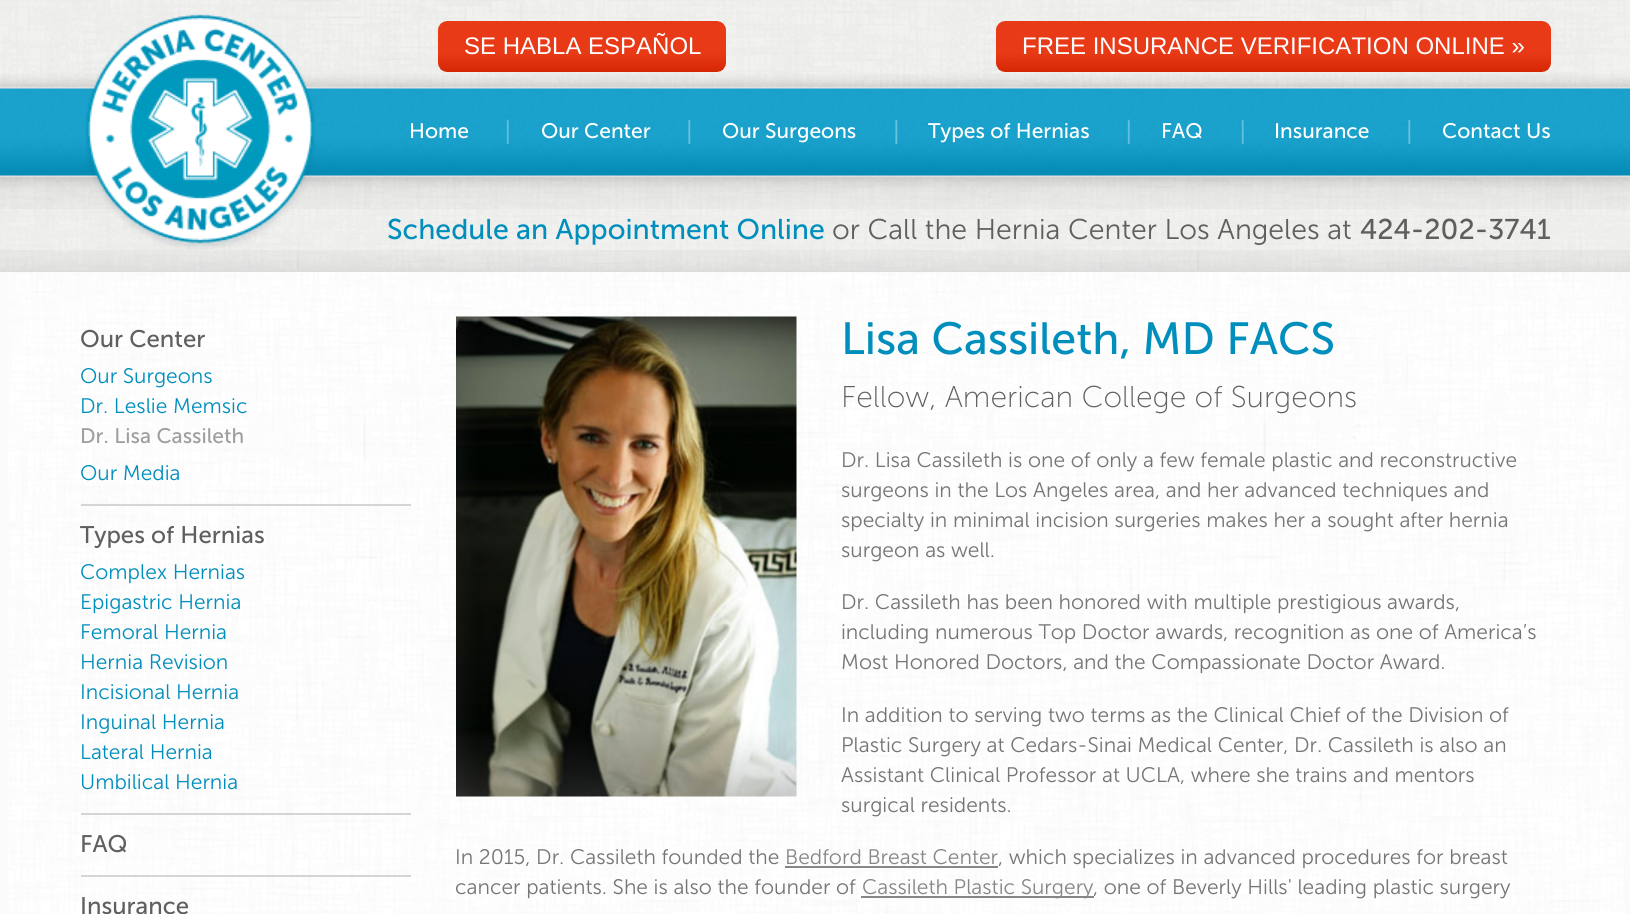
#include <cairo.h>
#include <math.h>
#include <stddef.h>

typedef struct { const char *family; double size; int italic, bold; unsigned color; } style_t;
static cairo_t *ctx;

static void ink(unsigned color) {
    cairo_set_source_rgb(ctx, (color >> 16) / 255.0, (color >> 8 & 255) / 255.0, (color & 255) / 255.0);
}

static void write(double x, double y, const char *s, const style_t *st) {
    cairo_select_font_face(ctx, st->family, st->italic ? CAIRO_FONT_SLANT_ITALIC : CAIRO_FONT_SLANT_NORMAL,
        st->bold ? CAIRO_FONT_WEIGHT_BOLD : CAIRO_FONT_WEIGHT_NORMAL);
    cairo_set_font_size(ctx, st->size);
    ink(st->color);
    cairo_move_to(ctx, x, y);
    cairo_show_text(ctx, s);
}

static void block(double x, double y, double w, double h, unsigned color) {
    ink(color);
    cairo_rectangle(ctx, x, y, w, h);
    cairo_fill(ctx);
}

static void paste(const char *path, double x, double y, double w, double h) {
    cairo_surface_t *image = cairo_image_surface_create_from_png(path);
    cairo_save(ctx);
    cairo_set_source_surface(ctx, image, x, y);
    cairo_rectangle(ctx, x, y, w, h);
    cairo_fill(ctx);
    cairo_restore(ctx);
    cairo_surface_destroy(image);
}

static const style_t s1 = {"Liberation Sans", 24, 0, 0, 0xffffff};
static const style_t s2 = {"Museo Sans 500", 21, 0, 0, 0xffffff};
static const style_t s3 = {"Museo Sans 500", 28.5, 0, 0, 0x008ebc};
static const style_t s4 = {"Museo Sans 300 Light", 28.5, 0, 0, 0x5f5f5d};
static const style_t s5 = {"Museo Sans 500", 28.5, 0, 0, 0x5f5f5d};
static const style_t s6 = {"Museo Sans 500", 24, 0, 0, 0x5f5f5d};
static const style_t s7 = {"Museo Sans 300 Light", 21, 0, 0, 0x008ebc};
static const style_t s8 = {"Museo Sans 500", 21, 0, 0, 0x9e9e9e};
static const style_t s9 = {"Museo Sans 500", 45, 0, 0, 0x008ebc};
static const style_t s10 = {"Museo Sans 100 Light", 30, 0, 0, 0x5f5f5d};
static const style_t s11 = {"Museo Sans 300 Light", 21, 0, 0, 0x757575};
static const style_t s12 = {"Museo Sans 300 Light", 21, 0, 0, 0x868686};

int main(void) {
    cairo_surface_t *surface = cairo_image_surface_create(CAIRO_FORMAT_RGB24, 1630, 914);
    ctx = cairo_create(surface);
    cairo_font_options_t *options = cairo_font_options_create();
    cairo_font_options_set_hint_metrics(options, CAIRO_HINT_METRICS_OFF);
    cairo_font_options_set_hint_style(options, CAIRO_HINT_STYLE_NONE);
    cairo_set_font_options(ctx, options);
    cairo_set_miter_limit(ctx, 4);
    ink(0xfbfbfb);
    cairo_paint(ctx);
    paste("pic1.png", 8, 272, 1617, 642);
    paste("pic2.png", 0, 0, 1630, 270);
    paste("pic3.png", 0, 74, 1630, 135);
    paste("pic4.png", 85, 14, 231, 236);
    paste("pic5.png", 438, 21, 288, 51);
    write(464, 54, "SE HABLA ESPAÑOL", &s1);
    paste("pic6.png", 996, 21, 555, 51);
    write(1022, 54, "FREE INSURANCE VERIFICATION ONLINE »", &s1);
    write(409, 138, "Home", &s2);
    paste("pic7.png", 506, 119, 3, 25);
    write(541, 138, "Our Center", &s2);
    paste("pic8.png", 688, 119, 3, 25);
    write(722, 138, "Our Surgeons", &s2);
    paste("pic9.png", 895, 119, 3, 25);
    write(928, 138, "Types of Hernias", &s2);
    paste("pic10.png", 1127, 119, 3, 25);
    write(1161, 138, "FAQ", &s2);
    paste("pic11.png", 1241, 119, 3, 25);
    write(1274, 138, "Insurance", &s2);
    paste("pic12.png", 1408, 119, 3, 25);
    write(1442, 138, "Contact Us", &s2);
    write(387, 239, "Schedule an Appointment Online", &s3);
    write(832, 239, "or Call the Hernia Center Los Angeles at", &s4);
    write(1360, 239, "424-202-3741", &s5);
    paste("pic13.png", 0, 250, 1630, 20);
    block(0, 270, 1630, 2, 0xdddddd);
    block(81, 504, 330, 2, 0xd5d5d5);
    write(80, 347, "Our Center", &s6);
    write(80, 383, "Our Surgeons", &s7);
    write(80, 413, "Dr. Leslie Memsic", &s7);
    write(80, 443, "Dr. Lisa Cassileth", &s8);
    write(80, 480, "Our Media", &s7);
    block(81, 813, 330, 2, 0xd5d5d5);
    write(80, 543, "Types of Hernias", &s6);
    write(80, 579, "Complex Hernias", &s7);
    write(80, 609, "Epigastric Hernia", &s7);
    write(80, 639, "Femoral Hernia", &s7);
    write(80, 669, "Hernia Revision", &s7);
    write(80, 699, "Incisional Hernia", &s7);
    write(80, 729, "Inguinal Hernia", &s7);
    write(80, 759, "Lateral Hernia", &s7);
    write(80, 789, "Umbilical Hernia", &s7);
    block(81, 875, 330, 2, 0xd5d5d5);
    write(80, 852, "FAQ", &s6);
    write(80, 914, "Insurance", &s6);
    paste("pic14.png", 456, 316, 341, 481);
    write(841, 354, "Lisa Cassileth, MD FACS", &s9);
    write(841, 407, "Fellow, American College of Surgeons", &s10);
    write(841, 467, "Dr. Lisa Cassileth is one of only a few female plastic and reconstructive", &s11);
    write(841, 497, "surgeons in the Los Angeles area, and her advanced techniques and", &s11);
    write(841, 527, "specialty in minimal incision surgeries makes her a sought after hernia", &s11);
    write(841, 557, "surgeon as well.", &s11);
    write(841, 609, "Dr. Cassileth has been honored with multiple prestigious awards,", &s11);
    write(841, 639, "including numerous Top Doctor awards, recognition as one of America’s", &s11);
    write(841, 669, "Most Honored Doctors, and the Compassionate Doctor Award.", &s11);
    write(841, 722, "In addition to serving two terms as the Clinical Chief of the Division of", &s11);
    write(841, 752, "Plastic Surgery at Cedars-Sinai Medical Center, Dr. Cassileth is also an", &s11);
    write(841, 782, "Assistant Clinical Professor at UCLA, where she trains and mentors", &s11);
    write(841, 812, "surgical residents.", &s11);
    write(455, 864, "In 2015, Dr. Cassileth founded the", &s11);
    write(785, 864, "Bedford Breast Center", &s12);
    block(785, 866, 213, 2, 0x868686);
    write(998, 864, ", which specializes in advanced procedures for breast", &s11);
    write(455, 894, "cancer patients. She is also the founder of", &s11);
    block(861, 896, 233, 2, 0x868686);
    write(862, 894, "Cassileth Plastic Surgery", &s12);
    write(1093, 894, ", one of Beverly Hills' leading plastic surgery", &s11);
    cairo_surface_write_to_png(surface, "screenshot.png");
    cairo_font_options_destroy(options);
    cairo_destroy(ctx);
    cairo_surface_destroy(surface);
    return 0;
}
